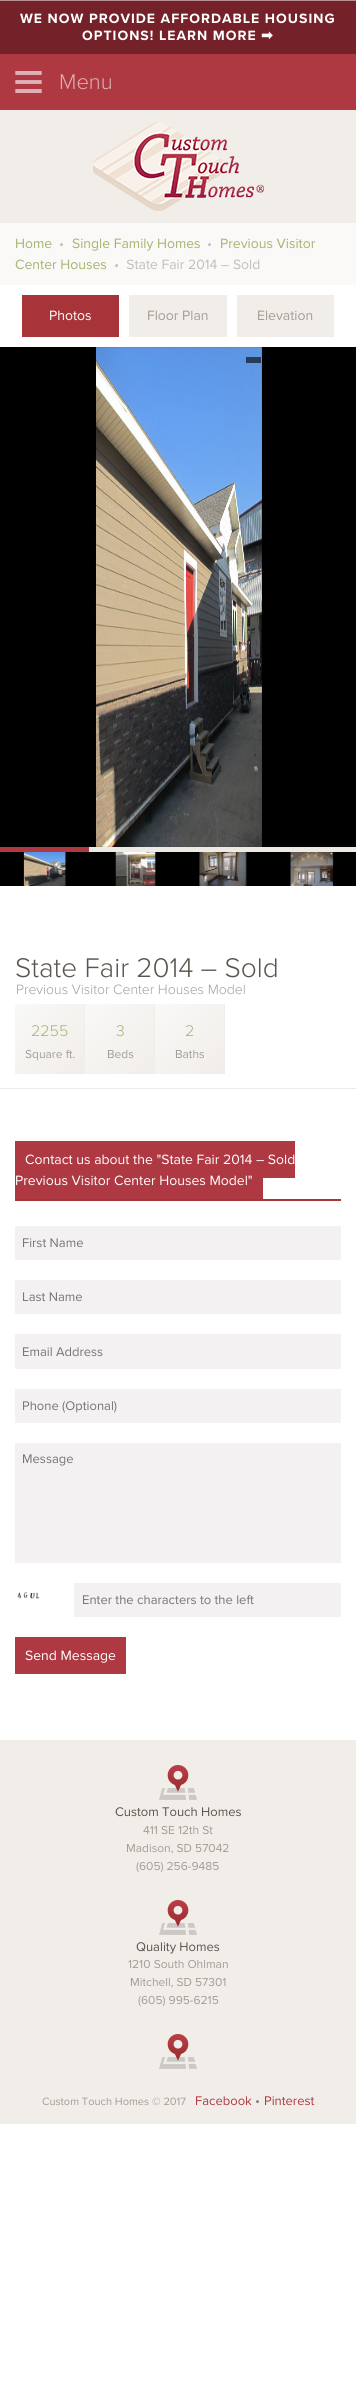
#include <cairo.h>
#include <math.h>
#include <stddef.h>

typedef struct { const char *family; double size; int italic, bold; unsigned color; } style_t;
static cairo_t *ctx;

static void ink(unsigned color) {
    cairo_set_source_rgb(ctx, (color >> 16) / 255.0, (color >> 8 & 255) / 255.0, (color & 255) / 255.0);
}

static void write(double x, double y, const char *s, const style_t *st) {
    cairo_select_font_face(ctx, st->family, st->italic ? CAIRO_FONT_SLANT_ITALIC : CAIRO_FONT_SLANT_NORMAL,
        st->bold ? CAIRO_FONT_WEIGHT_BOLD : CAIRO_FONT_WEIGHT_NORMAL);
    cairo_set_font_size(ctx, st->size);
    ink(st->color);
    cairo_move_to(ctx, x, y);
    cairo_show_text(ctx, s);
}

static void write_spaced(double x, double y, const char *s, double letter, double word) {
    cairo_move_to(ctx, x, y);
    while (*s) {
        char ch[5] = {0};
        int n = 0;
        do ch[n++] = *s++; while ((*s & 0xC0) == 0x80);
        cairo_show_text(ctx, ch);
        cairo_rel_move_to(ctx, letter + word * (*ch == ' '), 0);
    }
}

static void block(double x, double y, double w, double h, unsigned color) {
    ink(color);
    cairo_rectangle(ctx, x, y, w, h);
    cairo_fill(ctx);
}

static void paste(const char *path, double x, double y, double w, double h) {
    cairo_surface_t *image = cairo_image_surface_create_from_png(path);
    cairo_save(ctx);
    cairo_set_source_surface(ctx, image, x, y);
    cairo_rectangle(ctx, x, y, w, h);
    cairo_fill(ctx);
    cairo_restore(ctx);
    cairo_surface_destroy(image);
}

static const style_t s1 = {"Proxima Nova Light", 22, 0, 0, 0xdfafb3};
static const style_t s2 = {"Proxima Nova", 14, 0, 0, 0xa6b46e};
static const style_t s3 = {"Proxima Nova", 14, 0, 0, 0xc2beba};
static const style_t s4 = {"Proxima Nova", 14, 0, 0, 0xffffff};
static const style_t s5 = {"Proxima Nova", 14, 0, 0, 0xa39d97};
static const style_t s6 = {"Proxima Nova Light", 28, 0, 0, 0x5a544e};
static const style_t s7 = {"Proxima Nova Light", 14, 0, 0, 0xa39d97};
static const style_t s8 = {"Proxima Nova Light", 16, 0, 0, 0xa6b46e};
static const style_t s9 = {"Proxima Nova", 12, 0, 0, 0xa39d97};
static const style_t s10 = {"Proxima Nova", 13, 0, 0, 0x757575};
static const style_t s11 = {"Proxima Nova", 13, 0, 0, 0x5a544e};
static const style_t s12 = {"Proxima Nova", 11, 0, 0, 0xa39d97};
static const style_t s13 = {"Proxima Nova", 13, 0, 0, 0xaf3943};
static const style_t s14 = {"Proxima Nova", 14, 0, 0, 0x87817b};

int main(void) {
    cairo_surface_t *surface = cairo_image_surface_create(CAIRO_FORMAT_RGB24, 356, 2391);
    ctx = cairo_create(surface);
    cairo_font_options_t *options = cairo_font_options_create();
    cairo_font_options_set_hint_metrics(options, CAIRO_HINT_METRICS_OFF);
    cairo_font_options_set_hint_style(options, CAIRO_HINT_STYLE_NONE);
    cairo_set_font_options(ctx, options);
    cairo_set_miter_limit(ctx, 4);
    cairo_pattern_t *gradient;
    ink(0xffffff);
    cairo_paint(ctx);
    block(0, 1, 356, 53, 0x752129);
    block(0, 0, 356, 1, 0xba9094);
    cairo_select_font_face(ctx, "Proxima Nova", CAIRO_FONT_SLANT_NORMAL, CAIRO_FONT_WEIGHT_BOLD);
    cairo_set_font_size(ctx, 14);
    ink(0xffffff);
    write_spaced(20, 23, "WE NOW PROVIDE AFFORDABLE HOUSING", 1, 0);
    write_spaced(82, 40, "OPTIONS! LEARN MORE", 1, 0);
    cairo_select_font_face(ctx, "DejaVu Sans", CAIRO_FONT_SLANT_NORMAL, CAIRO_FONT_WEIGHT_BOLD);
    write_spaced(261, 40, "➡", 1, 0);
    block(0, 110, 356, 113, 0xf1ede9);
    block(0, 54, 356, 56, 0xaf3943);
    paste("pic1.png", 15, 71, 27, 22);
    write(59, 89, "Menu", &s1);
    paste("pic2.png", 93, 122, 171, 89);
    block(0, 223, 356, 62, 0xfaf9f8);
    write(15, 248, "Home", &s2);
    write(59, 248, "•", &s3);
    write(72, 248, "Single Family Homes", &s2);
    write(207, 248, "•", &s3);
    write(220, 248, "Previous Visitor", &s2);
    write(15, 269, "Center Houses", &s2);
    write(114, 269, "•  State Fair 2014 – Sold", &s3);
    block(22, 295, 97, 42, 0xa73439);
    write(49, 320, "Photos", &s4);
    block(129, 295, 98, 42, 0xf1ede9);
    write(147, 320, "Floor Plan", &s5);
    block(237, 295, 97, 42, 0xf1ede9);
    write(257, 320, "Elevation", &s5);
    paste("pic3.png", 0, 347, 356, 500);
    cairo_set_source_rgba(ctx, 0, 0, 0, 0.6);
    cairo_rectangle(ctx, 246, 357, 15, 6);
    cairo_fill(ctx);
    block(0, 847, 89, 5, 0xaf3943);
    paste("pic4.png", 0, 852, 89, 34);
    block(89, 847, 267, 5, 0xede9e5);
    paste("pic5.png", 89, 852, 89, 34);
    paste("pic6.png", 178, 852, 89, 34);
    paste("pic7.png", 267, 852, 89, 34);
    block(0, 1088, 356, 1, 0xede9e5);
    write(15, 977, "State Fair 2014 – Sold", &s6);
    write(16, 994, "Previous Visitor Center Houses Model", &s7);
    gradient = cairo_pattern_create_linear(85, 1074, 15, 1004);
    cairo_pattern_add_color_stop_rgba(gradient, 0, 0.945, 0.929, 0.914, 1);
    cairo_pattern_add_color_stop_rgba(gradient, 1, 0.976, 0.976, 0.969, 1);
    cairo_set_source(ctx, gradient);
    cairo_pattern_destroy(gradient);
    cairo_rectangle(ctx, 15, 1004, 69, 70);
    cairo_fill(ctx);
    block(84, 1004, 1, 70, 0xf1ede9);
    write(31, 1036, "2255", &s8);
    write(25, 1058, "Square ft.", &s9);
    gradient = cairo_pattern_create_linear(155, 1074, 85, 1004);
    cairo_pattern_add_color_stop_rgba(gradient, 0, 0.945, 0.929, 0.914, 1);
    cairo_pattern_add_color_stop_rgba(gradient, 1, 0.976, 0.976, 0.969, 1);
    cairo_set_source(ctx, gradient);
    cairo_pattern_destroy(gradient);
    cairo_rectangle(ctx, 85, 1004, 69, 70);
    cairo_fill(ctx);
    block(154, 1004, 1, 70, 0xf1ede9);
    write(116, 1036, "3", &s8);
    write(107, 1058, "Beds", &s9);
    gradient = cairo_pattern_create_linear(225, 1074, 155, 1004);
    cairo_pattern_add_color_stop_rgba(gradient, 0, 0.945, 0.929, 0.914, 1);
    cairo_pattern_add_color_stop_rgba(gradient, 1, 0.976, 0.976, 0.969, 1);
    cairo_set_source(ctx, gradient);
    cairo_pattern_destroy(gradient);
    cairo_rectangle(ctx, 155, 1004, 69, 70);
    cairo_fill(ctx);
    block(224, 1004, 1, 70, 0xf1ede9);
    write(185, 1036, "2", &s8);
    write(175, 1058, "Baths", &s9);
    block(15, 1141, 280, 37, 0xaf3943);
    write(25, 1164, "Contact us about the \"State Fair 2014 – Sold", &s4);
    block(15, 1178, 248, 21, 0xaf3943);
    write(15, 1185, "Previous Visitor Center Houses Model\"", &s4);
    block(15, 1199, 326, 2, 0xa73539);
    block(15, 1226, 326, 34, 0xf3f1f1);
    write(22, 1247, "First Name", &s10);
    block(15, 1280, 326, 34, 0xf3f1f1);
    write(22, 1301, "Last Name", &s10);
    block(15, 1334, 326, 35, 0xf3f1f1);
    write(22, 1356, "Email Address", &s10);
    block(15, 1389, 326, 34, 0xf3f1f1);
    write(22, 1410, "Phone (Optional)", &s10);
    block(15, 1443, 326, 120, 0xf3f1f1);
    write(22, 1463, "Message", &s10);
    paste("pic8.png", 17, 1591, 23, 8);
    block(74, 1583, 267, 34, 0xf3f1f1);
    write(82, 1604, "Enter the characters to the left", &s10);
    block(15, 1637, 111, 37, 0xaf3943);
    write(25, 1660, "Send Message", &s4);
    block(0, 1740, 356, 384, 0xf1ede9);
    paste("pic9.png", 159, 1765, 38, 35);
    write(115, 1816, "Custom Touch Homes", &s11);
    write(143, 1834, "411 SE 12th St", &s9);
    write(126, 1852, "Madison, SD 57042", &s9);
    write(136, 1870, "(605) 256-9485", &s9);
    paste("pic9.png", 159, 1900, 38, 35);
    write(136, 1951, "Quality Homes", &s11);
    write(128, 1968, "1210 South Ohlman", &s9);
    write(130, 1986, "Mitchell, SD 57301", &s9);
    write(138, 2004, "(605) 995-6215", &s9);
    paste("pic9.png", 159, 2034, 38, 35);
    write(42, 2105, "Custom Touch Homes © 2017", &s12);
    write(195, 2105, "Facebook", &s13);
    write(255, 2105, "•", &s14);
    write(264, 2105, "Pinterest", &s13);
    cairo_surface_write_to_png(surface, "screenshot.png");
    cairo_font_options_destroy(options);
    cairo_destroy(ctx);
    cairo_surface_destroy(surface);
    return 0;
}
